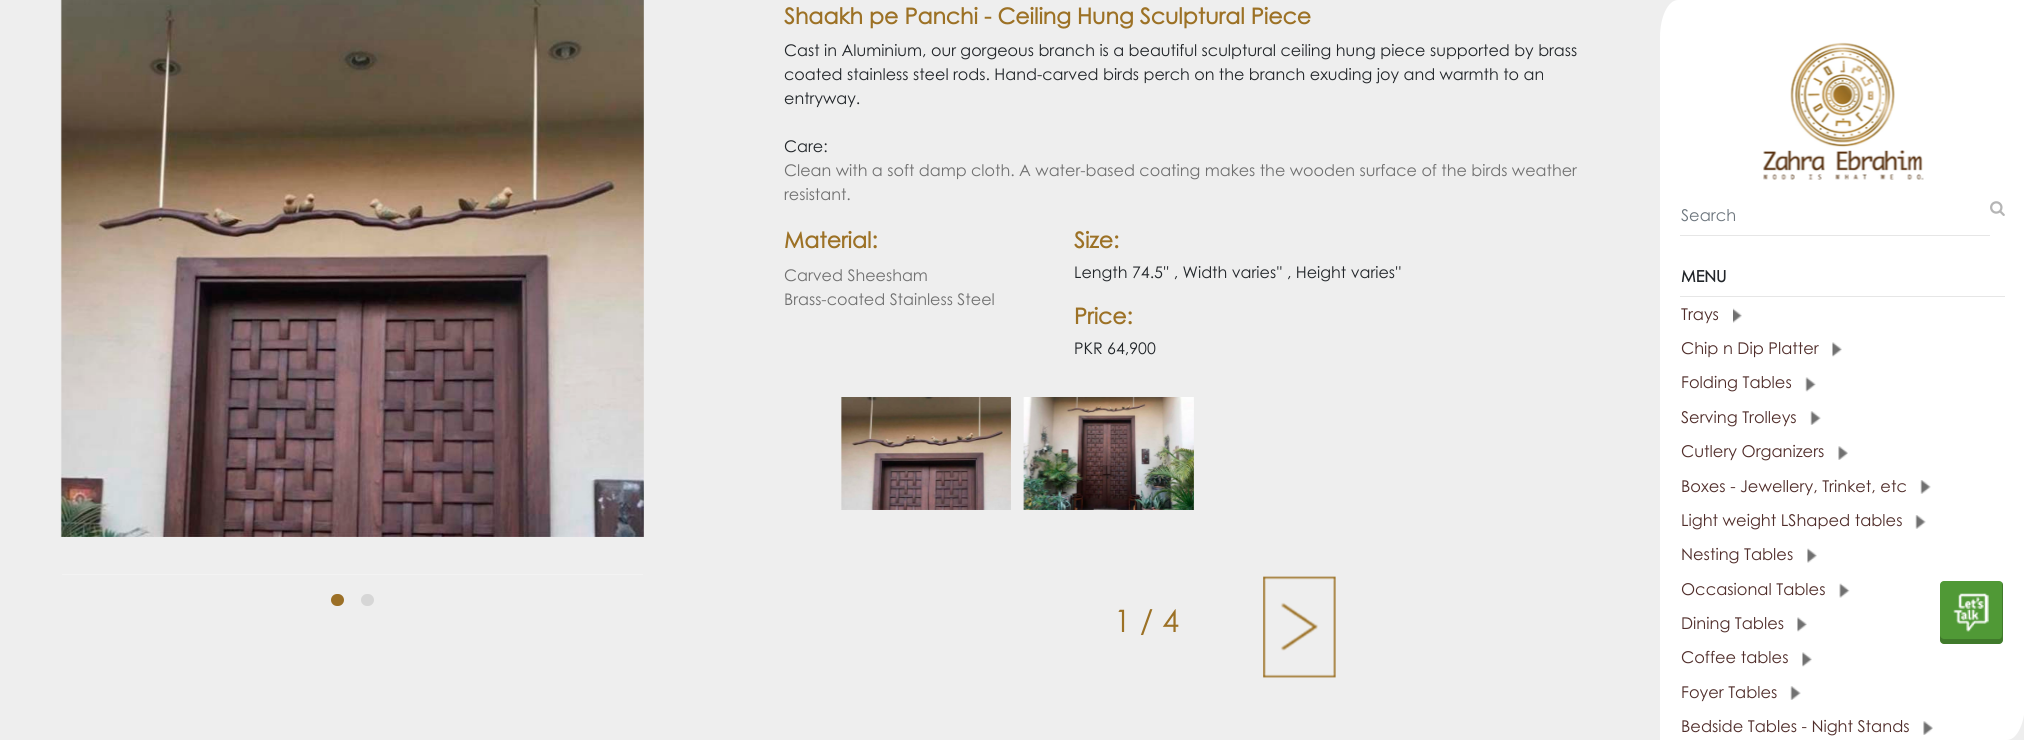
#include <cairo.h>
#include <math.h>
#include <stddef.h>

typedef struct { const char *family; double size; int italic, bold; unsigned color; } style_t;
static cairo_t *ctx;

static void ink(unsigned color) {
    cairo_set_source_rgb(ctx, (color >> 16) / 255.0, (color >> 8 & 255) / 255.0, (color & 255) / 255.0);
}

static void write(double x, double y, const char *s, const style_t *st) {
    cairo_select_font_face(ctx, st->family, st->italic ? CAIRO_FONT_SLANT_ITALIC : CAIRO_FONT_SLANT_NORMAL,
        st->bold ? CAIRO_FONT_WEIGHT_BOLD : CAIRO_FONT_WEIGHT_NORMAL);
    cairo_set_font_size(ctx, st->size);
    ink(st->color);
    cairo_move_to(ctx, x, y);
    cairo_show_text(ctx, s);
}

static void block(double x, double y, double w, double h, unsigned color) {
    ink(color);
    cairo_rectangle(ctx, x, y, w, h);
    cairo_fill(ctx);
}

static void round_path(double x, double y, double w, double h, double r) {
    cairo_new_sub_path(ctx);
    cairo_arc(ctx, x + w - r, y + h - r, r, 0, M_PI / 2);
    cairo_arc(ctx, x + r, y + h - r, r, M_PI / 2, M_PI);
    cairo_arc(ctx, x + r, y + r, r, M_PI, 1.5 * M_PI);
    cairo_arc(ctx, x + w - r, y + r, r, 1.5 * M_PI, 2 * M_PI);
    cairo_close_path(ctx);
}

static void paste(const char *path, double x, double y, double w, double h) {
    cairo_surface_t *image = cairo_image_surface_create_from_png(path);
    cairo_save(ctx);
    cairo_set_source_surface(ctx, image, x, y);
    cairo_rectangle(ctx, x, y, w, h);
    cairo_fill(ctx);
    cairo_restore(ctx);
    cairo_surface_destroy(image);
}

static const style_t s1 = {"Century Gothic", 22, 0, 1, 0x9c7125};
static const style_t s2 = {"Century Gothic", 16, 0, 0, 0x212529};
static const style_t s3 = {"Century Gothic", 16, 0, 0, 0x707070};
static const style_t s4 = {"Century Gothic", 31, 0, 0, 0x9c7125};
static const style_t s5 = {"Century Gothic", 16.25, 0, 0, 0x6c757d};
static const style_t s6 = {"Century Gothic", 16, 0, 1, 0x212529};
static const style_t s7 = {"Century Gothic", 16.25, 0, 0, 0x502d2a};

int main(void) {
    cairo_surface_t *surface = cairo_image_surface_create(CAIRO_FORMAT_RGB24, 2024, 740);
    ctx = cairo_create(surface);
    cairo_font_options_t *options = cairo_font_options_create();
    cairo_font_options_set_hint_metrics(options, CAIRO_HINT_METRICS_OFF);
    cairo_font_options_set_hint_style(options, CAIRO_HINT_STYLE_NONE);
    cairo_set_font_options(ctx, options);
    cairo_set_miter_limit(ctx, 4);
    ink(0xeeeeee);
    cairo_paint(ctx);
    paste("pic1.png", 60, 0, 584, 537);
    block(62, 574, 581, 1, 0xf3f3f3);
    ink(0x9b6f26);
    round_path(331, 594, 13, 12, 6);
    cairo_fill(ctx);
    ink(0xd6d6d6);
    round_path(361, 594, 13, 12, 6);
    cairo_fill(ctx);
    write(784, 24, "Shaakh pe Panchi - Ceiling Hung Sculptural Piece", &s1);
    write(784, 56, "Cast in Aluminium, our gorgeous branch is a beautiful sculptural ceiling hung piece supported by brass", &s2);
    write(784, 80, "coated stainless steel rods. Hand-carved birds perch on the branch exuding joy and warmth to an", &s2);
    write(784, 104, "entryway.", &s2);
    write(784, 152, "Care:", &s2);
    write(784, 176, "Clean with a soft damp cloth. A water-based coating makes the wooden surface of the birds weather", &s3);
    write(784, 200, "resistant.", &s3);
    write(784, 248, "Material:", &s1);
    write(784, 281, "Carved Sheesham", &s3);
    write(784, 305, "Brass-coated Stainless Steel", &s3);
    write(1074, 248, "Size:", &s1);
    write(1074, 278, "Length 74.5'' , Width varies'' , Height varies''", &s2);
    write(1074, 324, "Price:", &s1);
    write(1074, 354, "PKR 64,900", &s2);
    paste("pic2.png", 841, 397, 170, 113);
    paste("pic3.png", 1023, 397, 171, 113);
    write(1114, 632, "1 / 4", &s4);
    paste("pic4.png", 1263, 576, 73, 102);
    ink(0xffffff);
    cairo_new_path(ctx);
    cairo_move_to(ctx, 1678, 0);
    cairo_line_to(ctx, 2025, 0);
    cairo_line_to(ctx, 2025, 703);
    cairo_curve_to(ctx, 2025, 723, 2017, 740, 2007, 740);
    cairo_line_to(ctx, 1660, 740);
    cairo_line_to(ctx, 1660, 37);
    cairo_curve_to(ctx, 1660, 17, 1668, 0, 1678, 0);
    cairo_close_path(ctx);
    cairo_fill(ctx);
    paste("pic5.png", 1763, 42, 161, 138);
    block(1680, 235, 310, 1, 0xe6e6e6);
    write(1681, 221, "Search", &s5);
    paste("pic6.png", 1990, 201, 15, 15);
    write(1681, 282, "MENU", &s6);
    block(1680, 296, 325, 1, 0xe6e6e6);
    write(1681, 320, "Trays", &s7);
    paste("pic7.png", 1733, 308, 9, 15);
    write(1681, 354, "Chip n Dip Platter", &s7);
    paste("pic8.png", 1832, 342, 10, 15);
    write(1681, 388, "Folding Tables", &s7);
    paste("pic9.png", 1805, 377, 11, 15);
    write(1681, 423, "Serving Trolleys", &s7);
    paste("pic10.png", 1810, 411, 11, 14);
    write(1681, 457, "Cutlery Organizers", &s7);
    paste("pic11.png", 1838, 446, 10, 14);
    write(1681, 492, "Boxes - Jewellery, Trinket, etc", &s7);
    paste("pic12.png", 1920, 480, 11, 14);
    write(1681, 526, "Light weight LShaped tables", &s7);
    paste("pic12.png", 1915, 515, 11, 14);
    write(1681, 560, "Nesting Tables", &s7);
    paste("pic13.png", 1807, 548, 10, 15);
    write(1681, 595, "Occasional Tables", &s7);
    paste("pic14.png", 1839, 583, 11, 15);
    write(1681, 629, "Dining Tables", &s7);
    paste("pic8.png", 1797, 617, 10, 15);
    write(1681, 663, "Coffee tables", &s7);
    paste("pic8.png", 1802, 652, 10, 15);
    write(1681, 698, "Foyer Tables", &s7);
    paste("pic10.png", 1790, 686, 11, 14);
    write(1681, 732, "Bedside Tables - Night Stands", &s7);
    paste("pic11.png", 1923, 721, 10, 14);
    ink(0x509936);
    round_path(1940, 581, 63, 63, 4);
    cairo_fill(ctx);
    cairo_set_source_rgba(ctx, 0, 0, 0, 0.2);
    cairo_new_path(ctx);
    cairo_move_to(ctx, 1940, 635);
    cairo_line_to(ctx, 1940, 640);
    cairo_curve_to(ctx, 1940, 642, 1942, 644, 1944, 644);
    cairo_line_to(ctx, 1999, 644);
    cairo_curve_to(ctx, 2001, 644, 2003, 642, 2003, 640);
    cairo_line_to(ctx, 2003, 585);
    cairo_curve_to(ctx, 2003, 584, 2003, 583, 2002, 582);
    cairo_line_to(ctx, 2002, 635);
    cairo_curve_to(ctx, 2002, 637, 2001, 639, 1999, 639);
    cairo_line_to(ctx, 1944, 639);
    cairo_curve_to(ctx, 1942, 639, 1940, 637, 1940, 635);
    cairo_close_path(ctx);
    cairo_fill(ctx);
    paste("pic15.png", 1953, 593, 36, 39);
    cairo_surface_write_to_png(surface, "screenshot.png");
    cairo_font_options_destroy(options);
    cairo_destroy(ctx);
    cairo_surface_destroy(surface);
    return 0;
}
